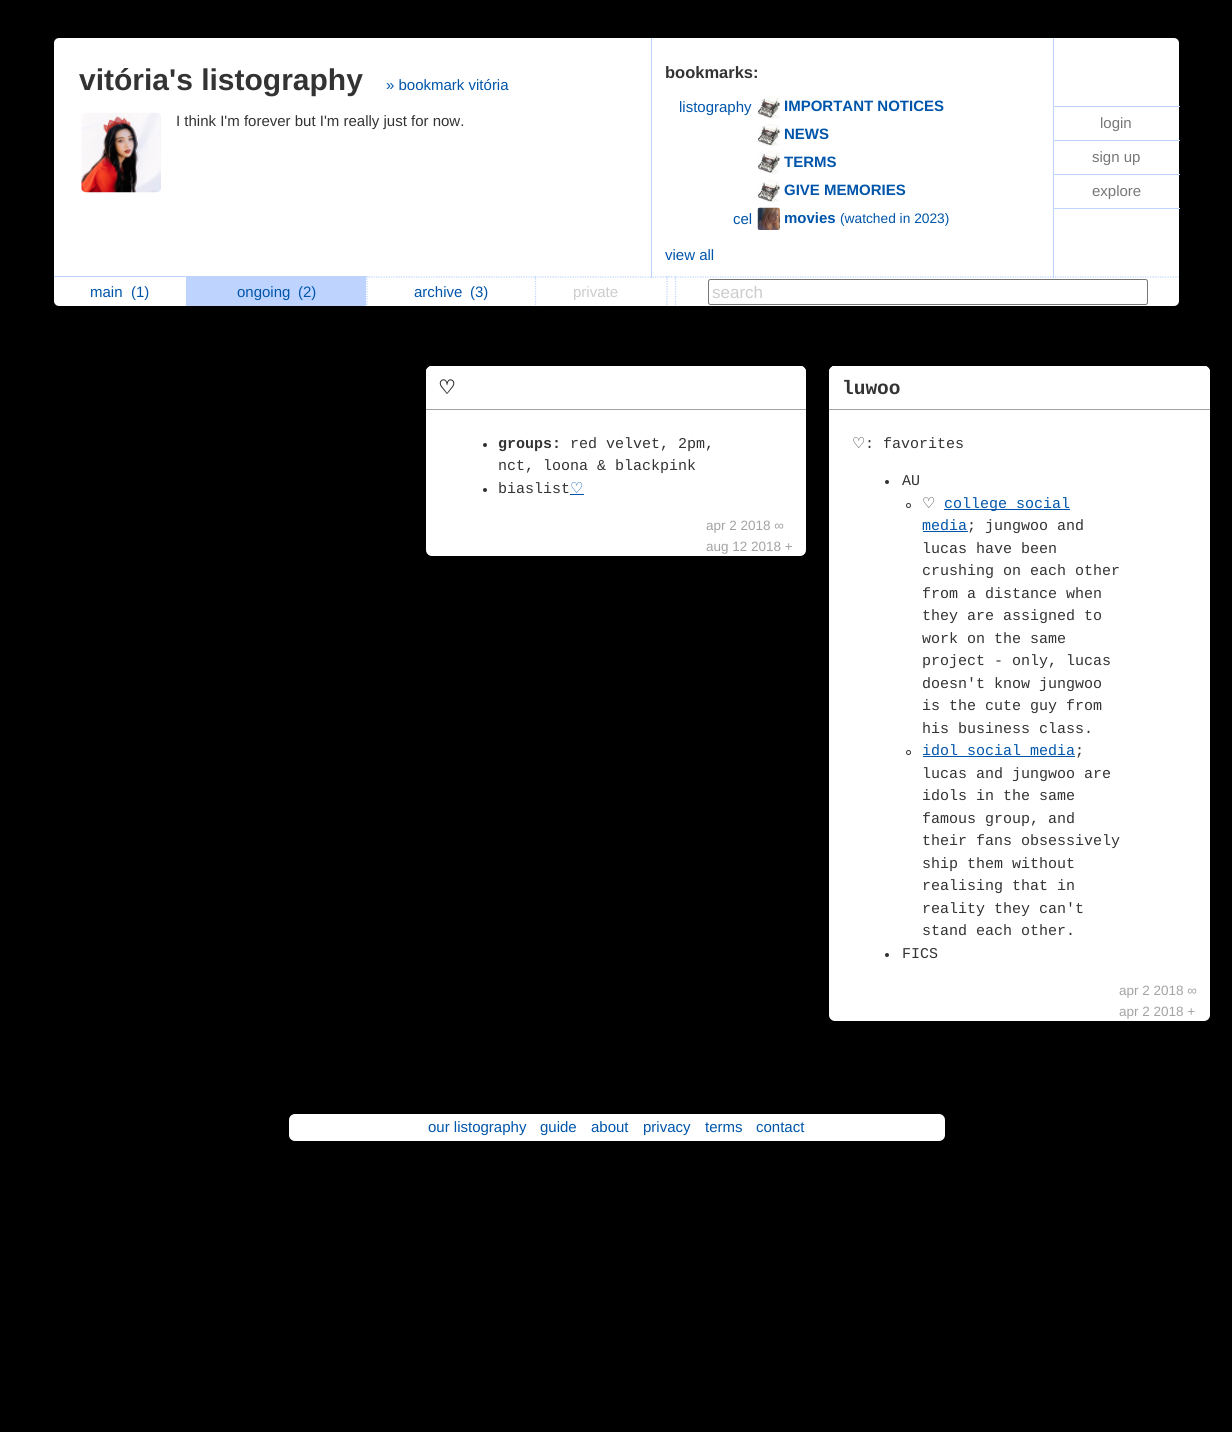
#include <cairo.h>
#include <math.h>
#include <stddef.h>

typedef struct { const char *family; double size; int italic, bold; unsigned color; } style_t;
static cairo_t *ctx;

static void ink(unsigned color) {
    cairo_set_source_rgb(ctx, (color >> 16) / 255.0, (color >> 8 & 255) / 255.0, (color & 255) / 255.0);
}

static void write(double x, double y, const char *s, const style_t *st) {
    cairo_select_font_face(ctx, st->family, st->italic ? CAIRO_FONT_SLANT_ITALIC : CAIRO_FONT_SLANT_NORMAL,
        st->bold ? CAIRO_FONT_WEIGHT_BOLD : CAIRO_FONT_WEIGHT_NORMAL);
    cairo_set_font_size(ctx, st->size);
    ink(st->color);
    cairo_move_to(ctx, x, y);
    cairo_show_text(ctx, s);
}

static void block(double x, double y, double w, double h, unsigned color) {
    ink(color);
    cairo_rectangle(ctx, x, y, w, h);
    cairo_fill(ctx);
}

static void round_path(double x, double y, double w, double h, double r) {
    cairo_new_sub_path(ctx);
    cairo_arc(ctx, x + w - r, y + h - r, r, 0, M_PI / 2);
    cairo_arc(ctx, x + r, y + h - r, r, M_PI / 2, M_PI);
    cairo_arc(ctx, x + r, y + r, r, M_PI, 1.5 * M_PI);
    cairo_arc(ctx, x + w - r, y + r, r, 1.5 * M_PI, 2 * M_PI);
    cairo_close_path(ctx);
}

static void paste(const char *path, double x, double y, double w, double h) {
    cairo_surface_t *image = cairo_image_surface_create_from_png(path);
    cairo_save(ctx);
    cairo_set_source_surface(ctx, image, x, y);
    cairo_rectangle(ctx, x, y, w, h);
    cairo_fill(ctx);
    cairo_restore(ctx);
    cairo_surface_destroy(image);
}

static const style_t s1 = {"Liberation Sans", 30, 0, 1, 0x333333};
static const style_t s2 = {"Liberation Sans", 15, 0, 0, 0x0055aa};
static const style_t s3 = {"Liberation Sans", 15, 0, 0, 0x333333};
static const style_t s4 = {"Liberation Sans", 16.5, 0, 1, 0x333333};
static const style_t s5 = {"Liberation Sans", 15, 0, 1, 0x0055aa};
static const style_t s6 = {"Liberation Sans", 13.75, 0, 0, 0x0055aa};
static const style_t s7 = {"Liberation Sans", 15, 0, 0, 0x777777};
static const style_t s8 = {"Liberation Sans", 15, 0, 0, 0xcccccc};
static const style_t s9 = {"Liberation Sans", 17, 0, 0, 0xcccccc};
static const style_t s10 = {"DejaVu Sans", 19.5, 0, 1, 0x333333};
static const style_t s11 = {"Liberation Mono", 15, 0, 1, 0x333333};
static const style_t s12 = {"Liberation Mono", 15, 0, 0, 0x333333};
static const style_t s13 = {"DejaVu Sans", 15, 0, 0, 0x0055aa};
static const style_t s14 = {"Liberation Sans", 13.5, 0, 0, 0xa3a3a3};
static const style_t s15 = {"Liberation Mono", 19.5, 0, 1, 0x333333};
static const style_t s16 = {"DejaVu Sans", 15, 0, 0, 0x333333};
static const style_t s17 = {"Liberation Mono", 15, 0, 0, 0x0055aa};

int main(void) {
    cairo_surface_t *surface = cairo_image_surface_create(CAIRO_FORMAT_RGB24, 1232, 1432);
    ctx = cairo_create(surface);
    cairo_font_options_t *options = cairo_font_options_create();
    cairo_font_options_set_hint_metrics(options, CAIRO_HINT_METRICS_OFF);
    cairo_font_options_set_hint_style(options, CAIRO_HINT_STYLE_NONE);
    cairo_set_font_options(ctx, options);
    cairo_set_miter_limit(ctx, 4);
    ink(0x000000);
    cairo_paint(ctx);
    ink(0xffffff);
    round_path(54, 38, 1125, 268, 5);
    cairo_fill(ctx);
    block(651, 38, 1, 240, 0xbed4ff);
    write(79, 90, "vitória's listography", &s1);
    write(386, 90, "» bookmark vitória", &s2);
    paste("pic1.png", 81, 112, 80, 81);
    write(176, 126, "I think I'm forever but I'm really just for now.", &s3);
    write(665, 78, "bookmarks:", &s4);
    write(679, 112, "listography", &s2);
    paste("pic2.png", 757, 96, 23, 23);
    write(784, 111, "IMPORTANT NOTICES", &s5);
    paste("pic3.png", 757, 124, 23, 22);
    write(784, 139, "NEWS", &s5);
    paste("pic2.png", 757, 151, 23, 23);
    write(784, 167, "TERMS", &s5);
    paste("pic4.png", 757, 180, 23, 23);
    write(784, 195, "GIVE MEMORIES", &s5);
    write(733, 224, "cel", &s2);
    paste("pic5.png", 757, 207, 23, 23);
    write(784, 223, "movies", &s5);
    write(840, 223, "(watched in 2023)", &s6);
    write(665, 260, "view all", &s2);
    block(1053, 38, 1, 240, 0xbed4ff);
    block(1054, 106, 126, 1, 0xbed4ff);
    write(1100, 128, "login", &s7);
    block(1054, 140, 126, 1, 0xbed4ff);
    write(1092, 162, "sign up", &s7);
    block(1054, 174, 126, 1, 0xbed4ff);
    block(1054, 208, 126, 1, 0xbed4ff);
    write(1092, 196, "explore", &s7);
    block(54, 276, 132, 1, 0xbed4ff);
    write(90, 297, "main", &s2);
    write(131, 297, "(1)", &s2);
    block(186, 276, 180, 30, 0xbed4ff);
    write(237, 297, "ongoing", &s2);
    write(298, 297, "(2)", &s2);
    cairo_new_path(ctx);
    cairo_move_to(ctx, 366, 277);
    cairo_line_to(ctx, 535, 277);
    ink(0xbed4ff);
    cairo_set_line_width(ctx, 1.2);
    cairo_set_dash(ctx, (double[]){1.25, 1.25}, 2, 0);
    cairo_stroke(ctx);
    cairo_new_path(ctx);
    cairo_move_to(ctx, 367, 276);
    cairo_line_to(ctx, 367, 306);
    cairo_stroke(ctx);
    write(414, 297, "archive", &s2);
    write(470, 297, "(3)", &s2);
    cairo_new_path(ctx);
    cairo_move_to(ctx, 535, 277);
    cairo_line_to(ctx, 666, 277);
    ink(0xbed4ff);
    cairo_stroke(ctx);
    cairo_new_path(ctx);
    cairo_move_to(ctx, 535.5, 276);
    cairo_line_to(ctx, 535.5, 306);
    cairo_stroke(ctx);
    write(573, 297, "private", &s8);
    cairo_new_path(ctx);
    cairo_move_to(ctx, 666, 277);
    cairo_line_to(ctx, 667.5, 277);
    cairo_move_to(ctx, 668.5, 277);
    cairo_line_to(ctx, 670, 277);
    cairo_move_to(ctx, 671, 277);
    cairo_line_to(ctx, 672.5, 277);
    cairo_move_to(ctx, 674, 277);
    cairo_line_to(ctx, 675, 277);
    ink(0xbed4ff);
    cairo_set_dash(ctx, NULL, 0, 0);
    cairo_stroke(ctx);
    cairo_new_path(ctx);
    cairo_move_to(ctx, 667, 276);
    cairo_line_to(ctx, 667, 306);
    cairo_set_dash(ctx, (double[]){1.25, 1.25}, 2, 0);
    cairo_stroke(ctx);
    cairo_new_path(ctx);
    cairo_move_to(ctx, 675, 277);
    cairo_line_to(ctx, 1179, 277);
    cairo_stroke(ctx);
    cairo_new_path(ctx);
    cairo_move_to(ctx, 675.5, 276);
    cairo_line_to(ctx, 675.5, 306);
    cairo_stroke(ctx);
    round_path(708.5, 279.5, 439, 25, 2);
    ink(0x767676);
    cairo_set_line_width(ctx, 1);
    cairo_set_dash(ctx, NULL, 0, 0);
    cairo_stroke(ctx);
    write(712, 298, "search", &s9);
    ink(0xffffff);
    round_path(426, 366, 380, 190, 6);
    cairo_fill(ctx);
    cairo_new_path(ctx);
    cairo_move_to(ctx, 432, 366);
    cairo_line_to(ctx, 800, 366);
    cairo_curve_to(ctx, 803.5, 366, 806, 368.5, 806, 372);
    cairo_line_to(ctx, 806, 410);
    cairo_line_to(ctx, 426, 410);
    cairo_line_to(ctx, 426, 372);
    cairo_curve_to(ctx, 426, 368.5, 428.5, 366, 432, 366);
    cairo_close_path(ctx);
    cairo_fill(ctx);
    cairo_new_path(ctx);
    cairo_move_to(ctx, 432, 368);
    cairo_curve_to(ctx, 430, 368, 427, 369, 426, 371);
    cairo_line_to(ctx, 426, 370);
    cairo_curve_to(ctx, 427, 369, 429, 367, 430, 366);
    cairo_line_to(ctx, 802, 366);
    cairo_curve_to(ctx, 804, 367, 806, 370, 806, 372);
    cairo_curve_to(ctx, 806, 370, 803, 368, 800, 368);
    cairo_close_path(ctx);
    cairo_fill(ctx);
    block(426, 409, 380, 1, 0xa3a3a3);
    write(438, 394, "♡", &s10);
    cairo_new_path(ctx);
    cairo_arc(ctx, 485, 445, 2, 0, 2 * M_PI);
    cairo_fill(ctx);
    write(498, 448, "groups:", &s11);
    write(570, 448, "red velvet, 2pm,", &s12);
    write(498, 470, "nct, loona & blackpink", &s12);
    cairo_new_path(ctx);
    cairo_arc(ctx, 485, 490, 2, 0, 2 * M_PI);
    cairo_fill(ctx);
    write(498, 493, "biaslist", &s12);
    write(570, 493, "♡", &s13);
    block(570, 494, 14, 1, 0x0055aa);
    write(706, 530, "apr 2 2018 ∞", &s14);
    write(706, 551, "aug 12 2018 +", &s14);
    ink(0xffffff);
    round_path(829, 366, 381, 655, 6);
    cairo_fill(ctx);
    cairo_new_path(ctx);
    cairo_move_to(ctx, 835, 366);
    cairo_line_to(ctx, 1204, 366);
    cairo_curve_to(ctx, 1207.5, 366, 1210, 368.5, 1210, 372);
    cairo_line_to(ctx, 1210, 410);
    cairo_line_to(ctx, 829, 410);
    cairo_line_to(ctx, 829, 372);
    cairo_curve_to(ctx, 829, 368.5, 831.5, 366, 835, 366);
    cairo_close_path(ctx);
    cairo_fill(ctx);
    cairo_new_path(ctx);
    cairo_move_to(ctx, 835, 368);
    cairo_curve_to(ctx, 832, 368, 829, 370, 829, 372);
    cairo_curve_to(ctx, 829, 370, 831, 367, 833, 366);
    cairo_line_to(ctx, 1206, 366);
    cairo_curve_to(ctx, 1208, 367, 1210, 370, 1210, 372);
    cairo_curve_to(ctx, 1210, 370, 1207, 368, 1204, 368);
    cairo_close_path(ctx);
    cairo_fill(ctx);
    block(829, 409, 381, 1, 0xa3a3a3);
    write(842, 394, "luwoo", &s15);
    write(852, 448, "♡", &s16);
    write(865, 448, ": favorites", &s12);
    cairo_new_path(ctx);
    cairo_arc(ctx, 887, 482, 2, 0, 2 * M_PI);
    cairo_fill(ctx);
    write(902, 485, "AU", &s12);
    cairo_new_path(ctx);
    cairo_arc(ctx, 908.5, 505.5, 2, 0, 2 * M_PI);
    cairo_stroke(ctx);
    write(922, 508, "♡", &s16);
    block(944, 509, 126, 1, 0x0055aa);
    write(944, 508, "college social", &s17);
    write(922, 530, "media", &s17);
    block(923, 531, 45, 1, 0x0055aa);
    write(967, 530, "; jungwoo and", &s12);
    write(922, 553, "lucas have been", &s12);
    write(922, 575, "crushing on each other", &s12);
    write(922, 598, "from a distance when", &s12);
    write(922, 620, "they are assigned to", &s12);
    write(922, 643, "work on the same", &s12);
    write(922, 665, "project - only, lucas", &s12);
    write(922, 688, "doesn't know jungwoo", &s12);
    write(922, 710, "is the cute guy from", &s12);
    write(922, 733, "his business class.", &s12);
    cairo_new_path(ctx);
    cairo_arc(ctx, 908.5, 752.5, 2, 0, 2 * M_PI);
    cairo_stroke(ctx);
    write(922, 755, "idol social media", &s17);
    block(923, 756, 152, 1, 0x0055aa);
    write(1075, 755, ";", &s12);
    write(922, 778, "lucas and jungwoo are", &s12);
    write(922, 800, "idols in the same", &s12);
    write(922, 823, "famous group, and", &s12);
    write(922, 845, "their fans obsessively", &s12);
    write(922, 868, "ship them without", &s12);
    write(922, 890, "realising that in", &s12);
    write(922, 913, "reality they can't", &s12);
    write(922, 935, "stand each other.", &s12);
    cairo_new_path(ctx);
    cairo_arc(ctx, 887, 955, 2, 0, 2 * M_PI);
    cairo_fill(ctx);
    write(902, 958, "FICS", &s12);
    write(1119, 995, "apr 2 2018 ∞", &s14);
    write(1119, 1016, "apr 2 2018 +", &s14);
    ink(0xffffff);
    round_path(289, 1114, 656, 27, 6);
    cairo_fill(ctx);
    write(428, 1132, "our listography", &s2);
    write(540, 1132, "guide", &s2);
    write(591, 1132, "about", &s2);
    write(643, 1132, "privacy", &s2);
    write(705, 1132, "terms", &s2);
    write(756, 1132, "contact", &s2);
    cairo_surface_write_to_png(surface, "screenshot.png");
    cairo_font_options_destroy(options);
    cairo_destroy(ctx);
    cairo_surface_destroy(surface);
    return 0;
}
